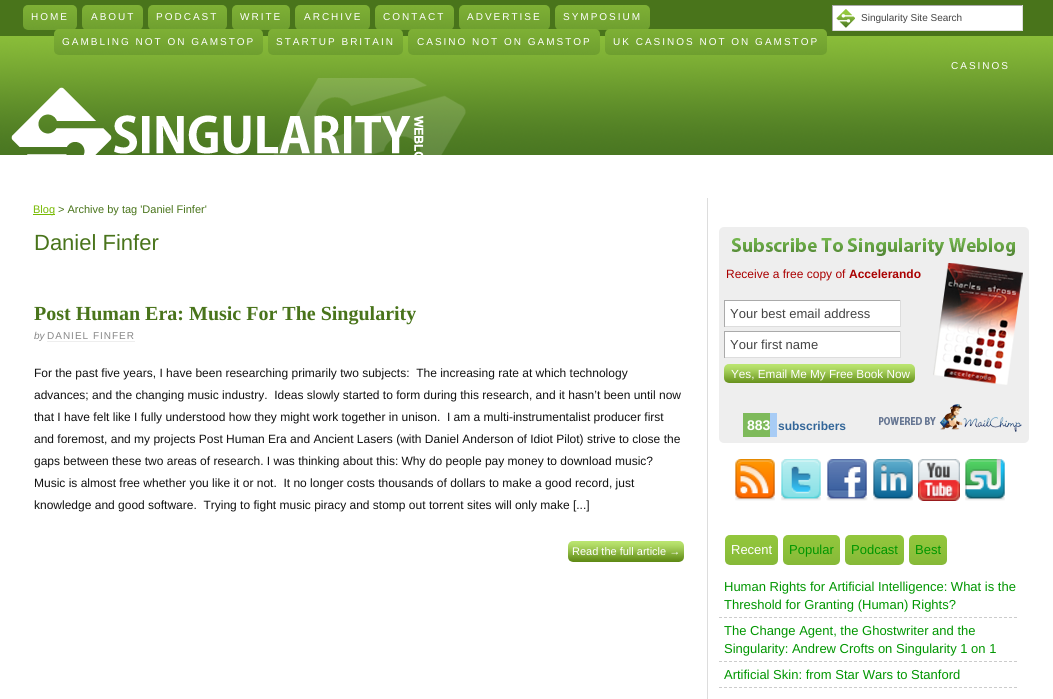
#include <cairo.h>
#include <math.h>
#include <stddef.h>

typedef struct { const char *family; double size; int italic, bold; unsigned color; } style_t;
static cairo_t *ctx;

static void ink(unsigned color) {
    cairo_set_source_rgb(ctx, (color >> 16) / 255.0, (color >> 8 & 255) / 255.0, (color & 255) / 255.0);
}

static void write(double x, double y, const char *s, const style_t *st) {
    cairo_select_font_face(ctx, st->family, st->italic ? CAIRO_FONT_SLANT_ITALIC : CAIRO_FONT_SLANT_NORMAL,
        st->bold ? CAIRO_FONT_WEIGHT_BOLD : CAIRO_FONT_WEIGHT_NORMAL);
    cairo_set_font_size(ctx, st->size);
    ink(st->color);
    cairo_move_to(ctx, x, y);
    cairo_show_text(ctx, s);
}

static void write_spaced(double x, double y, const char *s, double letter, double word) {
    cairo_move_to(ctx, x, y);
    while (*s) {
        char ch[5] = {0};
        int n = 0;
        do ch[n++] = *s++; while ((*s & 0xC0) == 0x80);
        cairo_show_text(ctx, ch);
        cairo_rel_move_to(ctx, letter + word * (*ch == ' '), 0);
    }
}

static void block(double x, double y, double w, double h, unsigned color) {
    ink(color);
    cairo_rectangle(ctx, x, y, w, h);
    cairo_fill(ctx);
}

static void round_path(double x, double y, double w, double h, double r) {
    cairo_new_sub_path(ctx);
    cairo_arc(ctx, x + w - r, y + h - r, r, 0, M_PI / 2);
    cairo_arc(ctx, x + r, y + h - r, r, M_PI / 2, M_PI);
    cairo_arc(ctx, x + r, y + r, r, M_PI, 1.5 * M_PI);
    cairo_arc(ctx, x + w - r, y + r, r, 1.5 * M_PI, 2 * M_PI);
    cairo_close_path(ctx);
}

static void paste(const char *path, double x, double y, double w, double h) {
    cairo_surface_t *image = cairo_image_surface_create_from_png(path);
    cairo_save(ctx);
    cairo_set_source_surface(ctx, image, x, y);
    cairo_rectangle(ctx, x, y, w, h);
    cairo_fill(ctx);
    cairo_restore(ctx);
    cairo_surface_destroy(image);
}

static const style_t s1 = {"Liberation Sans", 10, 0, 0, 0x444444};
static const style_t s2 = {"Liberation Sans", 11, 0, 0, 0x78ba03};
static const style_t s3 = {"Liberation Sans", 11, 0, 0, 0x49741b};
static const style_t s4 = {"Liberation Sans", 22, 0, 0, 0x49741b};
static const style_t s5 = {"Liberation Serif", 20, 0, 1, 0x49741b};
static const style_t s6 = {"Liberation Sans", 10, 1, 0, 0x888888};
static const style_t s7 = {"Liberation Sans", 12, 0, 0, 0x111111};
static const style_t s8 = {"Liberation Sans", 11, 0, 0, 0xffffff};
static const style_t s9 = {"Liberation Sans", 12, 0, 0, 0xaa0000};
static const style_t s10 = {"Liberation Sans", 12, 0, 1, 0xaa0000};
static const style_t s11 = {"Liberation Sans", 13, 0, 0, 0x444444};
static const style_t s12 = {"Liberation Sans", 11.75, 0, 0, 0xffffff};
static const style_t s13 = {"Liberation Sans", 14, 0, 1, 0xffffff};
static const style_t s14 = {"Liberation Sans", 12, 0, 1, 0x336699};
static const style_t s15 = {"Liberation Sans", 13, 0, 0, 0xffffff};
static const style_t s16 = {"Liberation Sans", 13, 0, 0, 0x009600};

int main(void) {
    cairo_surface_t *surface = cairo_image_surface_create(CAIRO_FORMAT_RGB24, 1053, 699);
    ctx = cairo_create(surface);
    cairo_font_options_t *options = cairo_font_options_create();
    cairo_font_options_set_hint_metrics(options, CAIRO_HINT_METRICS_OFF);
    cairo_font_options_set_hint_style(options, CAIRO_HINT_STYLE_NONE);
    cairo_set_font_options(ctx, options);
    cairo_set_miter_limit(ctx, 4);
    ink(0xffffff);
    cairo_paint(ctx);
    paste("pic1.png", 0, 36, 1053, 119);
    block(0, 0, 1053, 36, 0x49741b);
    paste("pic2.png", 23, 5, 54, 25);
    cairo_select_font_face(ctx, "Liberation Sans", CAIRO_FONT_SLANT_NORMAL, CAIRO_FONT_WEIGHT_NORMAL);
    cairo_set_font_size(ctx, 10);
    ink(0xffffff);
    write_spaced(31, 20, "HOME", 2, 0);
    paste("pic3.png", 82, 5, 61, 24);
    write_spaced(91, 20, "ABOUT", 2, 0);
    paste("pic4.png", 148, 5, 79, 24);
    write_spaced(156, 20, "PODCAST", 2, 0);
    paste("pic5.png", 232, 5, 58, 25);
    write_spaced(240, 20, "WRITE", 2, 0);
    paste("pic6.png", 295, 5, 75, 24);
    write_spaced(304, 20, "ARCHIVE", 2, 0);
    paste("pic7.png", 375, 5, 79, 25);
    write_spaced(383, 20, "CONTACT", 2, 0);
    paste("pic8.png", 459, 5, 91, 24);
    write_spaced(467, 20, "ADVERTISE", 2, 0);
    paste("pic9.png", 555, 5, 95, 25);
    write_spaced(563, 20, "SYMPOSIUM", 2, 0);
    block(833, 6, 189, 24, 0xffffff);
    paste("pic10.png", 836, 9, 19, 19);
    block(832, 5, 191, 1, 0xaaaaaa);
    block(1022, 5, 1, 26, 0xdddddd);
    block(832, 30, 191, 1, 0xdddddd);
    block(832, 5, 1, 26, 0xaaaaaa);
    write(861, 21, "Singularity Site Search", &s1);
    paste("pic11.png", 54, 29, 209, 26);
    ink(0xffffff);
    write_spaced(62, 45, "GAMBLING NOT ON GAMSTOP", 2, 0);
    paste("pic12.png", 268, 29, 135, 26);
    write_spaced(276, 45, "STARTUP BRITAIN", 2, 0);
    paste("pic13.png", 408, 29, 192, 26);
    write_spaced(417, 45, "CASINO NOT ON GAMSTOP", 2, 0);
    paste("pic14.png", 605, 29, 222, 26);
    write_spaced(613, 45, "UK CASINOS NOT ON GAMSTOP", 2, 0);
    write_spaced(951, 69, "CASINOS", 2, 0);
    paste("pic15.png", 273, 78, 193, 77);
    paste("pic16.png", 11, 87, 413, 68);
    block(33, 214, 22, 1, 0x78ba03);
    write(33, 213, "Blog", &s2);
    write(58, 213, "> Archive by tag 'Daniel Finfer'", &s3);
    block(707, 198, 1, 501, 0xdddddd);
    write(34, 250, "Daniel Finfer", &s4);
    write(34, 320, "Post Human Era: Music For The Singularity", &s5);
    write(34, 339, "by", &s6);
    block(47, 341, 88, 1, 0xeeeeee);
    cairo_select_font_face(ctx, "Liberation Sans", CAIRO_FONT_SLANT_NORMAL, CAIRO_FONT_WEIGHT_NORMAL);
    ink(0x888888);
    write_spaced(47, 339, "DANIEL FINFER", 1, 0);
    write(34, 377, "For the past five years, I have been researching primarily two subjects:  The increasing rate at which technology", &s7);
    write(34, 399, "advances; and the changing music industry.  Ideas slowly started to form during this research, and it hasn’t been until now", &s7);
    write(34, 421, "that I have felt like I fully understood how they might work together in unison.  I am a multi-instrumentalist producer first", &s7);
    write(34, 443, "and foremost, and my projects Post Human Era and Ancient Lasers (with Daniel Anderson of Idiot Pilot) strive to close the", &s7);
    write(34, 465, "gaps between these two areas of research. I was thinking about this: Why do people pay money to download music?", &s7);
    write(34, 487, "Music is almost free whether you like it or not.  It no longer costs thousands of dollars to make a good record, just", &s7);
    write(34, 509, "knowledge and good software.  Trying to fight music piracy and stomp out torrent sites will only make [...]", &s7);
    paste("pic17.png", 568, 541, 116, 21);
    write(572, 555, "Read the full article →", &s8);
    ink(0xeeeeee);
    round_path(719, 227, 310, 216, 5);
    cairo_fill(ctx);
    paste("pic18.png", 731, 238, 284, 18);
    paste("pic19.png", 933, 263, 90, 122);
    write(726, 278, "Receive a free copy of", &s9);
    write(849, 278, "Accelerando", &s10);
    block(725, 301, 175, 25, 0xffffff);
    block(724, 300, 177, 1, 0xaaaaaa);
    block(900, 300, 1, 27, 0xdddddd);
    block(724, 326, 177, 1, 0xdddddd);
    block(724, 300, 1, 27, 0xaaaaaa);
    write(730, 318, "Your best email address", &s11);
    block(725, 332, 175, 25, 0xffffff);
    block(724, 331, 177, 1, 0xaaaaaa);
    block(900, 331, 1, 27, 0xdddddd);
    block(724, 357, 177, 1, 0xdddddd);
    block(724, 331, 1, 27, 0xaaaaaa);
    write(730, 349, "Your first name", &s11);
    paste("pic20.png", 724, 364, 191, 19);
    write(731, 378, "Yes, Email Me My Free Book Now", &s12);
    block(743, 413, 27, 24, 0x7eba5b);
    write(747, 430, "883", &s13);
    block(770, 413, 7, 24, 0xa8ccf5);
    write(778, 430, "subscribers", &s14);
    paste("pic21.png", 879, 404, 143, 28);
    paste("pic22.png", 735, 459, 40, 42);
    paste("pic23.png", 781, 459, 40, 42);
    paste("pic24.png", 826, 459, 42, 42);
    paste("pic25.png", 873, 459, 40, 42);
    paste("pic26.png", 918, 459, 42, 42);
    paste("pic27.png", 965, 459, 40, 42);
    paste("pic28.png", 725, 535, 53, 30);
    write(731, 554, "Recent", &s15);
    paste("pic29.png", 783, 535, 57, 30);
    write(789, 554, "Popular", &s16);
    paste("pic30.png", 845, 535, 59, 30);
    write(851, 554, "Podcast", &s16);
    paste("pic31.png", 909, 535, 38, 30);
    write(915, 554, "Best", &s16);
    cairo_new_path(ctx);
    cairo_move_to(ctx, 719, 617.5);
    cairo_line_to(ctx, 1017, 617.5);
    ink(0xcccccc);
    cairo_set_line_width(ctx, 1);
    cairo_set_dash(ctx, (double[]){3, 2}, 2, 0);
    cairo_stroke(ctx);
    write(724, 591, "Human Rights for Artificial Intelligence: What is the", &s16);
    write(724, 609, "Threshold for Granting (Human) Rights?", &s16);
    cairo_new_path(ctx);
    cairo_move_to(ctx, 719, 661.5);
    cairo_line_to(ctx, 1017, 661.5);
    ink(0xcccccc);
    cairo_stroke(ctx);
    write(724, 635, "The Change Agent, the Ghostwriter and the", &s16);
    write(724, 653, "Singularity: Andrew Crofts on Singularity 1 on 1", &s16);
    cairo_new_path(ctx);
    cairo_move_to(ctx, 719, 687.5);
    cairo_line_to(ctx, 1017, 687.5);
    ink(0xcccccc);
    cairo_stroke(ctx);
    write(724, 679, "Artificial Skin: from Star Wars to Stanford", &s16);
    cairo_surface_write_to_png(surface, "screenshot.png");
    cairo_font_options_destroy(options);
    cairo_destroy(ctx);
    cairo_surface_destroy(surface);
    return 0;
}
